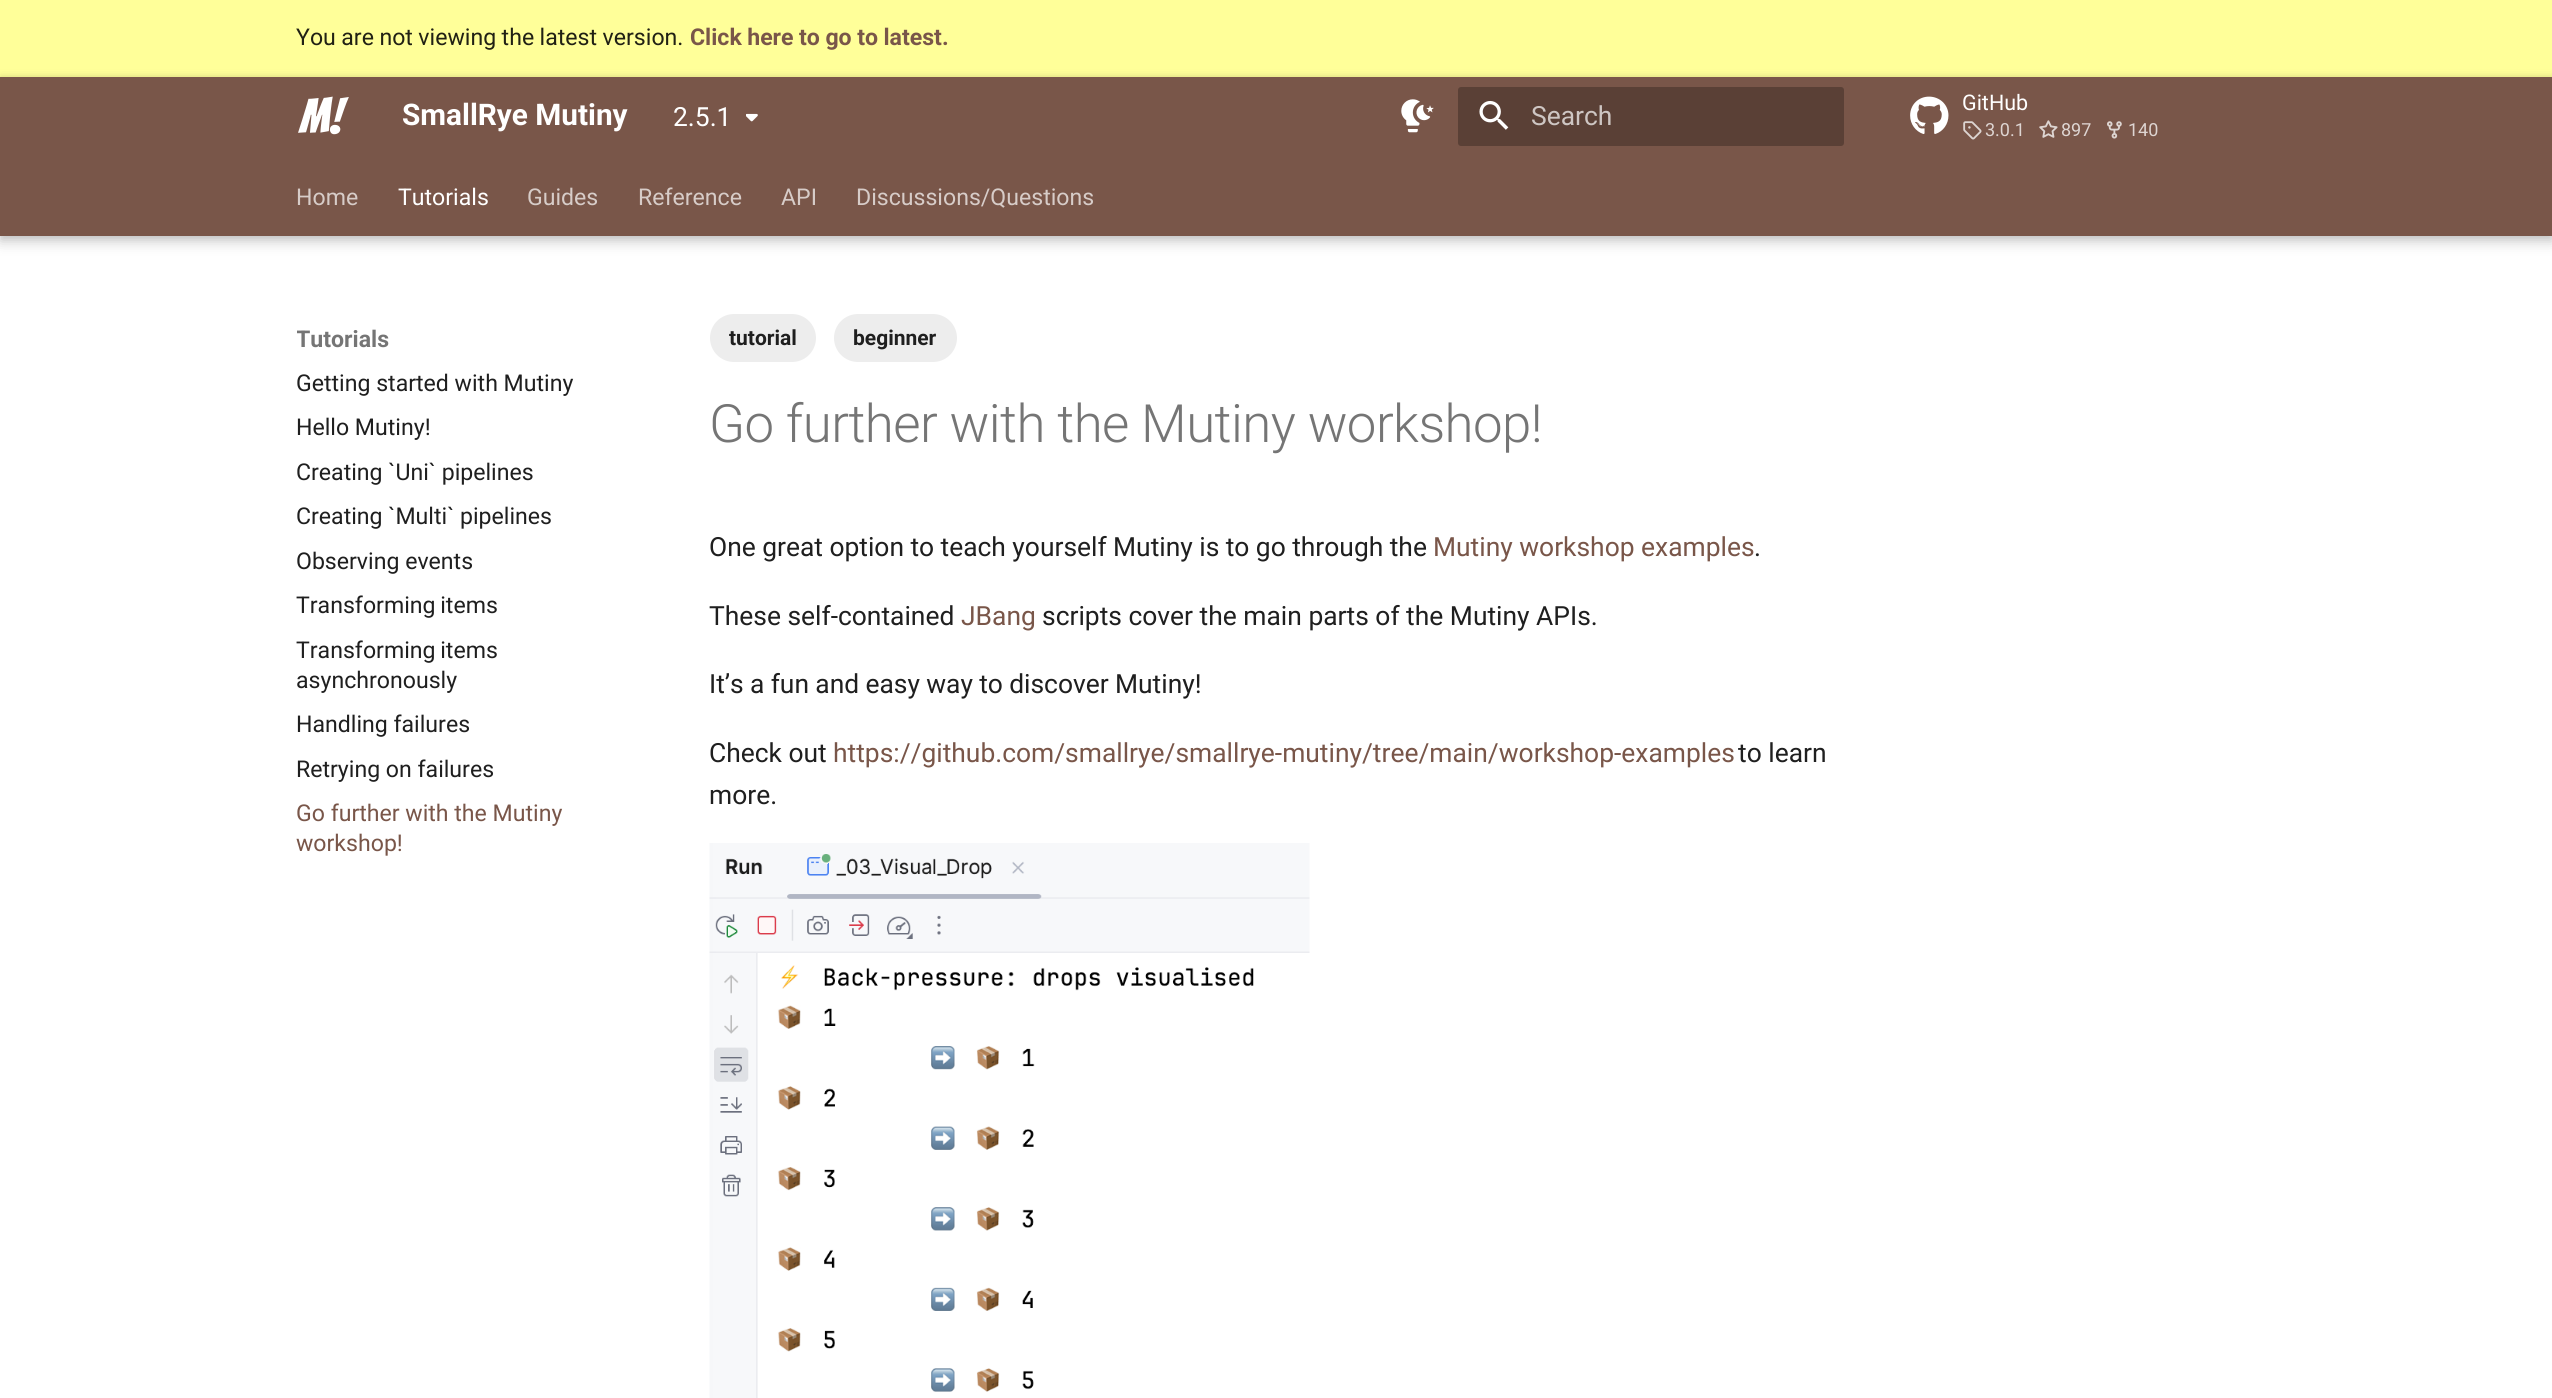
#include <cairo.h>
#include <math.h>
#include <stddef.h>

typedef struct { const char *family; double size; int italic, bold; unsigned color; } style_t;
static cairo_t *ctx;

static void ink(unsigned color) {
    cairo_set_source_rgb(ctx, (color >> 16) / 255.0, (color >> 8 & 255) / 255.0, (color & 255) / 255.0);
}

static void write(double x, double y, const char *s, const style_t *st) {
    cairo_select_font_face(ctx, st->family, st->italic ? CAIRO_FONT_SLANT_ITALIC : CAIRO_FONT_SLANT_NORMAL,
        st->bold ? CAIRO_FONT_WEIGHT_BOLD : CAIRO_FONT_WEIGHT_NORMAL);
    cairo_set_font_size(ctx, st->size);
    ink(st->color);
    cairo_move_to(ctx, x, y);
    cairo_show_text(ctx, s);
}

static void write_spaced(double x, double y, const char *s, double letter, double word) {
    cairo_move_to(ctx, x, y);
    while (*s) {
        char ch[5] = {0};
        int n = 0;
        do ch[n++] = *s++; while ((*s & 0xC0) == 0x80);
        cairo_show_text(ctx, ch);
        cairo_rel_move_to(ctx, letter + word * (*ch == ' '), 0);
    }
}

static void block(double x, double y, double w, double h, unsigned color) {
    ink(color);
    cairo_rectangle(ctx, x, y, w, h);
    cairo_fill(ctx);
}

static void round_path(double x, double y, double w, double h, double r) {
    cairo_new_sub_path(ctx);
    cairo_arc(ctx, x + w - r, y + h - r, r, 0, M_PI / 2);
    cairo_arc(ctx, x + r, y + h - r, r, M_PI / 2, M_PI);
    cairo_arc(ctx, x + r, y + r, r, M_PI, 1.5 * M_PI);
    cairo_arc(ctx, x + w - r, y + r, r, 1.5 * M_PI, 2 * M_PI);
    cairo_close_path(ctx);
}

static void blur_box(double x, double y, double w, double h, double r, double blur, double alpha) {
    cairo_push_group_with_content(ctx, CAIRO_CONTENT_ALPHA);
    cairo_set_operator(ctx, CAIRO_OPERATOR_SOURCE);
    for (int i = 15; i >= -15 && fmin(w, h) + blur * i / 3 > 0; i -= 2) {
        double e = blur * i / 6;
        cairo_set_source_rgba(ctx, 0, 0, 0, alpha * erfc((i - 1) / 8.5) / 2);
        round_path(x - e, y - e, w + 2 * e, h + 2 * e, fmax(0, fmin(r + e + blur * .6, fmin(w, h) / 2 + e)));
        cairo_fill(ctx);
    }
    cairo_pattern_t *soft = cairo_pop_group(ctx);
    cairo_mask(ctx, soft);
    cairo_pattern_destroy(soft);
}

static void paste(const char *path, double x, double y, double w, double h) {
    cairo_surface_t *image = cairo_image_surface_create_from_png(path);
    cairo_save(ctx);
    cairo_set_source_surface(ctx, image, x, y);
    cairo_rectangle(ctx, x, y, w, h);
    cairo_fill(ctx);
    cairo_restore(ctx);
    cairo_surface_destroy(image);
}

static const style_t s1 = {"Roboto", 29.75, 0, 1, 0xffffff};
static const style_t s2 = {"Roboto", 26.4, 0, 0, 0xffffff};
static const style_t s3 = {"Roboto", 26.4, 0, 0, 0xcec6c3};
static const style_t s4 = {"Roboto", 21.5, 0, 0, 0xffffff};
static const style_t s5 = {"Roboto", 18, 0, 0, 0xded5d2};
static const style_t s6 = {"Roboto", 23.1, 0, 0, 0xd7ccc8};
static const style_t s7 = {"Roboto", 23.1, 0, 0, 0xffffff};
static const style_t s8 = {"Roboto", 23.1, 0, 1, 0x757575};
static const style_t s9 = {"Roboto", 23.1, 0, 0, 0x1f1f1f};
static const style_t s10 = {"Roboto", 23.1, 0, 0, 0x795649};
static const style_t s11 = {"Roboto", 21, 0, 1, 0x1f1f1f};
static const style_t s12 = {"Roboto", 26.4, 0, 0, 0x795649};
static const style_t s13 = {"Roboto", 26.4, 0, 0, 0x1f1f1f};

int main(void) {
    cairo_surface_t *surface = cairo_image_surface_create(CAIRO_FORMAT_RGB24, 2552, 1398);
    ctx = cairo_create(surface);
    cairo_font_options_t *options = cairo_font_options_create();
    cairo_font_options_set_hint_metrics(options, CAIRO_HINT_METRICS_OFF);
    cairo_font_options_set_hint_style(options, CAIRO_HINT_STYLE_NONE);
    cairo_set_font_options(ctx, options);
    cairo_set_miter_limit(ctx, 4);
    ink(0xffffff);
    cairo_paint(ctx);
    block(0, 0, 2552, 77, 0xffff99);
    cairo_select_font_face(ctx, "Roboto", CAIRO_FONT_SLANT_NORMAL, CAIRO_FONT_WEIGHT_NORMAL);
    cairo_set_font_size(ctx, 23.1);
    ink(0x212114);
    write_spaced(296, 45, "You are not viewing the latest version.", 0, -0.25);
    cairo_select_font_face(ctx, "Roboto", CAIRO_FONT_SLANT_NORMAL, CAIRO_FONT_WEIGHT_BOLD);
    ink(0x795649);
    write_spaced(690, 45, "Click here to go to latest.", 0, -0.25);
    ink(0x000000);
    blur_box(0, 83, 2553, 159, 0, 6.5, 0.2);
    blur_box(0, 77, 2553, 159, 0, 3.5, 0.1);
    block(0, 77, 2552, 159, 0x795649);
    paste("pic1.png", 298, 96, 51, 39);
    write(402, 125, "SmallRye Mutiny", &s1);
    write(673, 126, "2.5.1", &s2);
    paste("pic2.png", 746, 113, 12, 9);
    paste("pic3.png", 1401, 99, 33, 34);
    ink(0x5a4036);
    round_path(1458, 87, 386, 59, 3);
    cairo_fill(ctx);
    paste("pic4.png", 1479, 100, 30, 30);
    write(1531, 125, "Search", &s3);
    paste("pic5.png", 1910, 96, 39, 38);
    write(1962, 110, "GitHub", &s4);
    paste("pic6.png", 1963, 121, 19, 19);
    write(1985, 136, "3.0.1", &s5);
    paste("pic7.png", 2039, 120, 19, 18);
    write(2061, 136, "897", &s5);
    paste("pic8.png", 2107, 121, 15, 18);
    write(2128, 136, "140", &s5);
    write(296, 205, "Home", &s6);
    write(398, 205, "Tutorials", &s7);
    write(527, 205, "Guides", &s6);
    write(638, 205, "Reference", &s6);
    write(781, 205, "API", &s6);
    write(856, 205, "Discussions/Questions", &s6);
    cairo_save(ctx);
    cairo_rectangle(ctx, 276, 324, 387, 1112);
    cairo_clip(ctx);
    cairo_set_fill_rule(ctx, CAIRO_FILL_RULE_EVEN_ODD);
    cairo_new_path(ctx);
    cairo_move_to(ctx, 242, 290);
    cairo_line_to(ctx, 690, 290);
    cairo_line_to(ctx, 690, 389);
    cairo_line_to(ctx, 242, 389);
    cairo_close_path(ctx);
    cairo_move_to(ctx, 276, 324);
    cairo_line_to(ctx, 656, 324);
    cairo_line_to(ctx, 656, 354);
    cairo_line_to(ctx, 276, 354);
    cairo_close_path(ctx);
    cairo_clip(ctx);
    ink(0xffffff);
    blur_box(263, 311, 406, 57, 0, 6.5, 1);
    cairo_restore(ctx);
    cairo_save(ctx);
    cairo_rectangle(ctx, 297, 324, 92, 30);
    cairo_clip(ctx);
    write(296, 347, "Tutorials", &s8);
    cairo_restore(ctx);
    write(296, 391, "Getting started with Mutiny", &s9);
    write(296, 435, "Hello Mutiny!", &s9);
    write(296, 480, "Creating `Uni` pipelines", &s9);
    write(296, 524, "Creating `Multi` pipelines", &s9);
    write(296, 569, "Observing events", &s9);
    write_spaced(296, 613, "Transforming items", 0, -1);
    write_spaced(296, 658, "Transforming items", 0, -1);
    write(296, 688, "asynchronously", &s9);
    write(296, 732, "Handling failures", &s9);
    write(296, 777, "Retrying on failures", &s9);
    write(296, 821, "Go further with the Mutiny", &s10);
    write(296, 851, "workshop!", &s10);
    ink(0xededed);
    round_path(710, 314, 106, 48, 24);
    cairo_fill(ctx);
    write(729, 345, "tutorial", &s11);
    ink(0xededed);
    round_path(834, 314, 123, 48, 24);
    cairo_fill(ctx);
    write(853, 345, "beginner", &s11);
    cairo_select_font_face(ctx, "Roboto Light", CAIRO_FONT_SLANT_NORMAL, CAIRO_FONT_WEIGHT_NORMAL);
    cairo_set_font_size(ctx, 52.75);
    ink(0x757575);
    write_spaced(709, 442, "Go further with the Mutiny workshop!", -0.55, 0);
    cairo_select_font_face(ctx, "Roboto", CAIRO_FONT_SLANT_NORMAL, CAIRO_FONT_WEIGHT_NORMAL);
    cairo_set_font_size(ctx, 26.4);
    ink(0x1f1f1f);
    write_spaced(709, 556, "One great option to teach yourself Mutiny is to go through the", 0, -0.1);
    write(1433, 556, "Mutiny workshop examples", &s12);
    write(1754, 556, ".", &s13);
    write(709, 625, "These self-contained", &s13);
    write(961, 625, "JBang", &s12);
    write(1042, 625, "scripts cover the main parts of the Mutiny APIs.", &s13);
    write_spaced(709, 693, "It’s a fun and easy way to discover Mutiny!", 0, -0.25);
    write(709, 762, "Check out", &s13);
    write(833, 762, "https://github.com/smallrye/smallrye-mutiny/tree/main/workshop-examples", &s12);
    write(1738, 762, "to learn", &s13);
    write(709, 804, "more.", &s13);
    paste("pic9.png", 709, 843, 601, 555);
    cairo_surface_write_to_png(surface, "screenshot.png");
    cairo_font_options_destroy(options);
    cairo_destroy(ctx);
    cairo_surface_destroy(surface);
    return 0;
}
